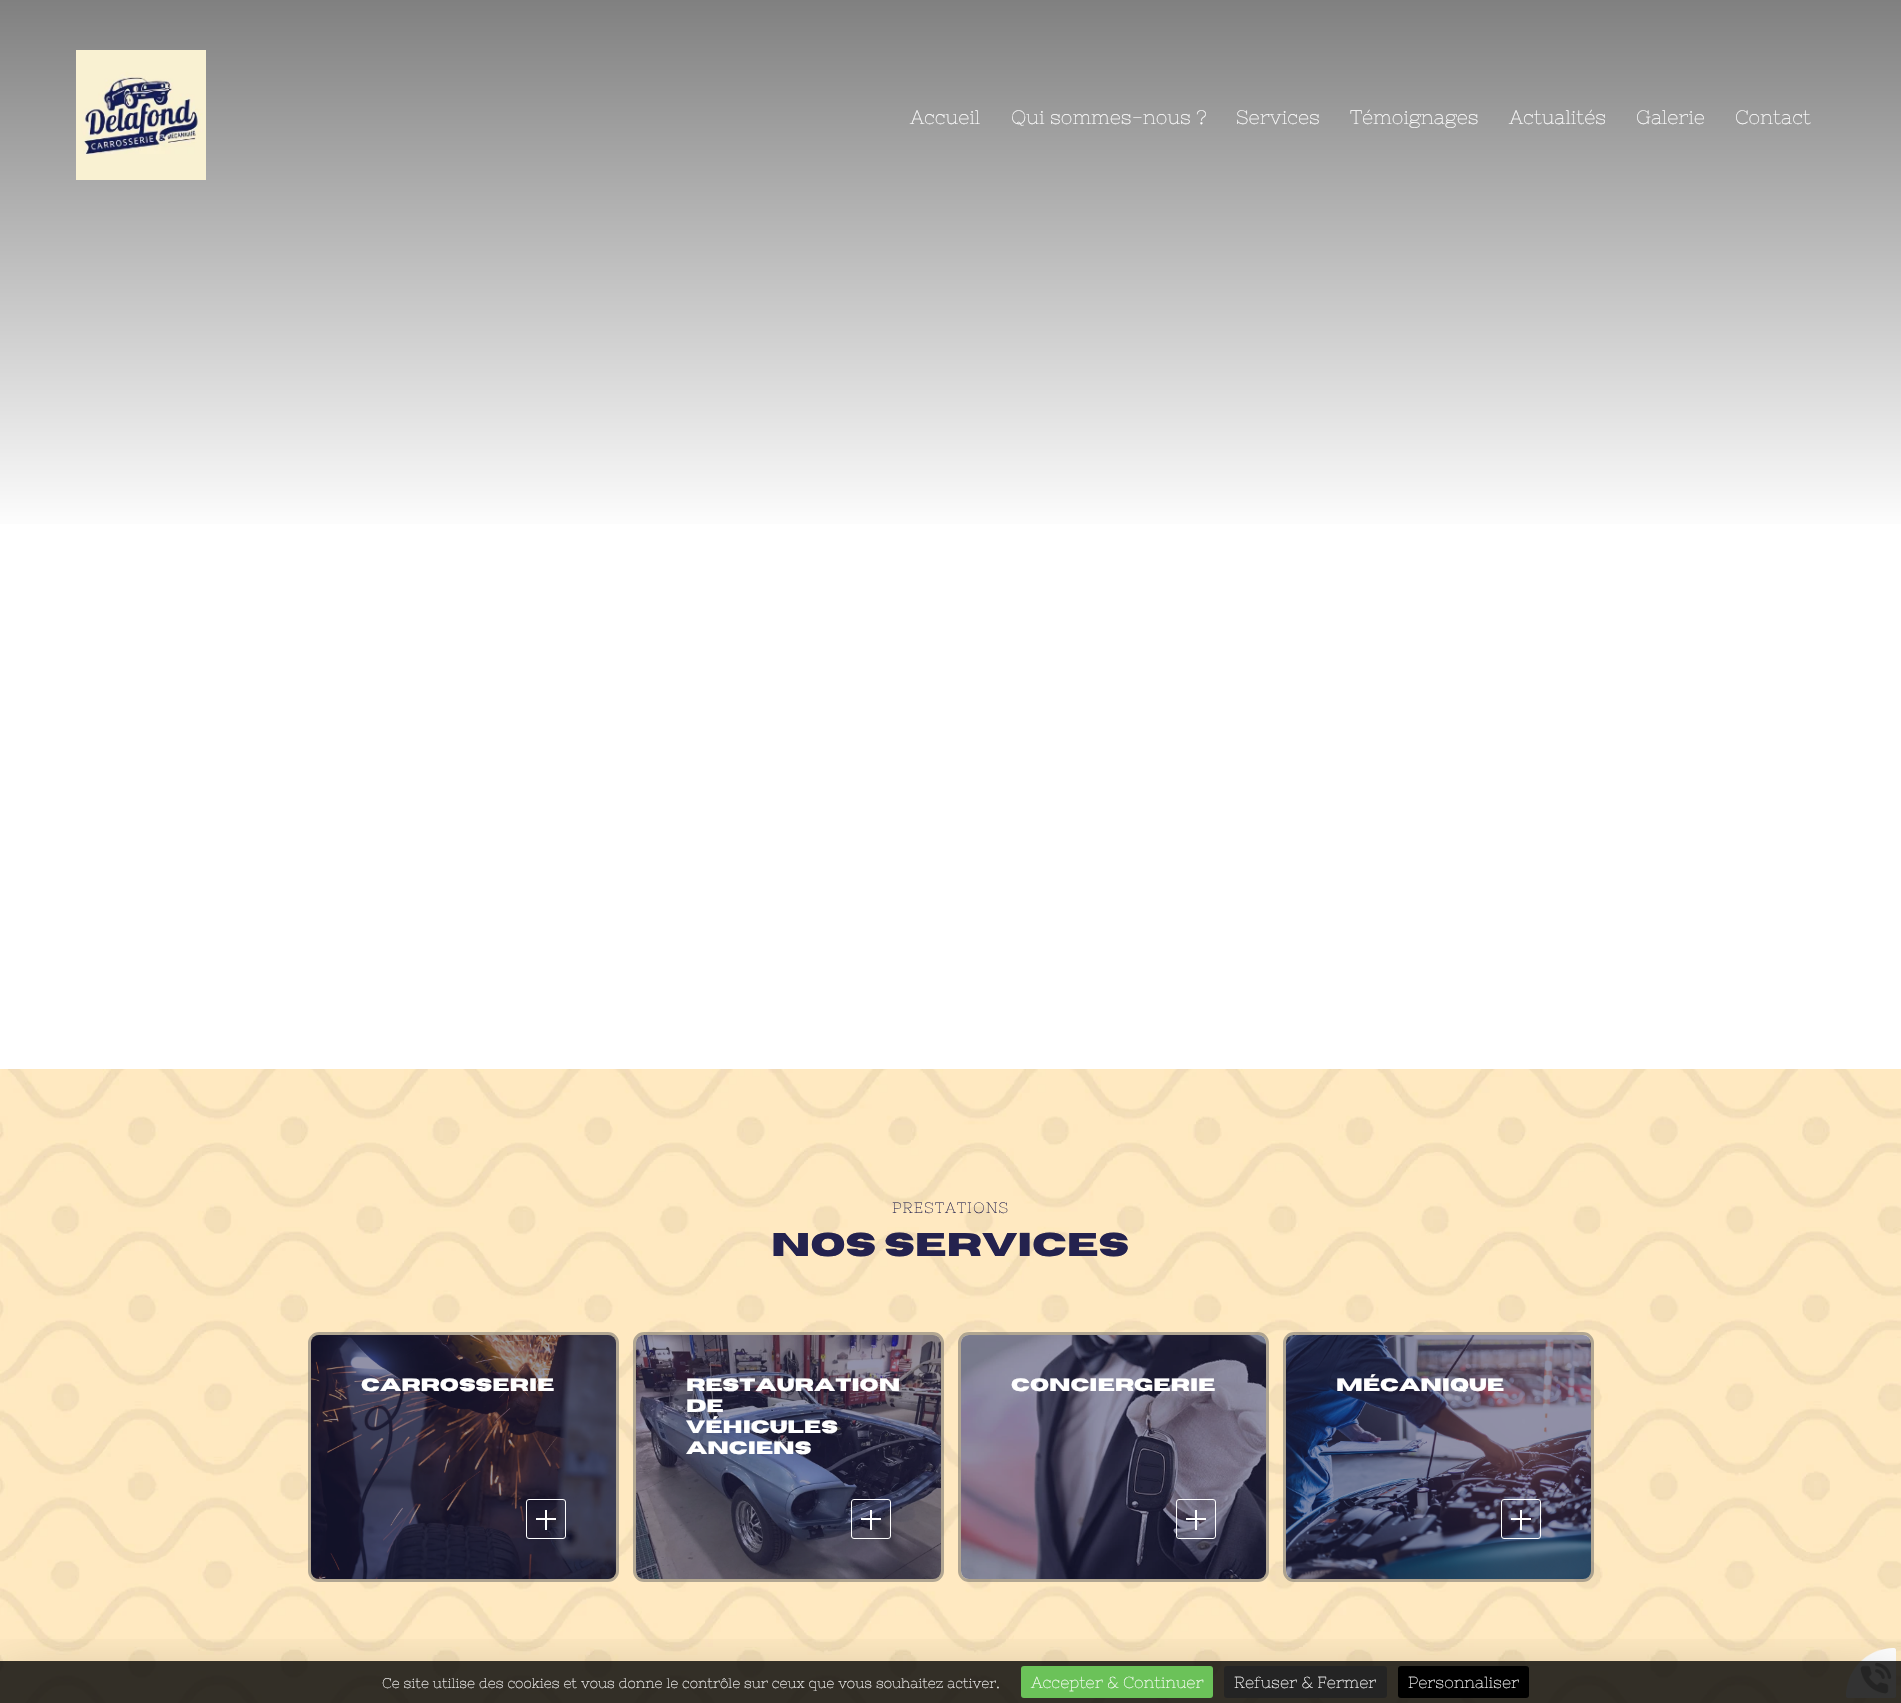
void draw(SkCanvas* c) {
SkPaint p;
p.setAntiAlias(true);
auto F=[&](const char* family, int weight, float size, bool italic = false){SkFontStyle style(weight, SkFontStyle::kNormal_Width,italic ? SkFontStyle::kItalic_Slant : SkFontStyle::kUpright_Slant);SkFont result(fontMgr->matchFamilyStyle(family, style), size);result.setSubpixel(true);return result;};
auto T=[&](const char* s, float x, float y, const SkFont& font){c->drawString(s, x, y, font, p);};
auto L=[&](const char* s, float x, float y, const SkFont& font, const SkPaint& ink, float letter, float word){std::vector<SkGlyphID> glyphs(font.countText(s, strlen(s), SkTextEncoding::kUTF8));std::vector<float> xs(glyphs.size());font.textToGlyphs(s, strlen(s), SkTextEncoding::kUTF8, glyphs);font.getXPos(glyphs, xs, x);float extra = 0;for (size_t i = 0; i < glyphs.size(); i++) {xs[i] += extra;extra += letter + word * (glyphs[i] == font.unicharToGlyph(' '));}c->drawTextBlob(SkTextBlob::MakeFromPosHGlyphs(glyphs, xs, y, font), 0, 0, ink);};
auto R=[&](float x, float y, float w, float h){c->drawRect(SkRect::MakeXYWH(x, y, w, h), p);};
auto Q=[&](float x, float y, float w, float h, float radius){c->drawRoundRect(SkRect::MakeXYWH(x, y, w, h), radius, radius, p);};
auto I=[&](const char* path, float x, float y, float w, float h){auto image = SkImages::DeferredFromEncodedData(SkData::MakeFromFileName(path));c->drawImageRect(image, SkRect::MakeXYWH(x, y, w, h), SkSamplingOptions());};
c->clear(0xffffffff);
{
const SkColor colors[] = {0xff808080,0xffffffff};
const float stops[] = {0,1};
const SkPoint ends[] = {{951,0}, {951,535}};
p.setShader(SkGradientShader::MakeLinear(ends, colors, stops, 2, SkTileMode::kClamp));
p.setAlpha(255);
}
R(0,0,1901,524);
I("1.png",76,50,130,130);
auto f1 = F("Nixie One",400,19.5);
p.setShader(nullptr);
p.setColor(0xffffffff);
T("Accueil",910,124,f1);
T("Qui sommes-nous ?",1011,124,f1);
T("Services",1236,124,f1);
T("Témoignages",1350,124,f1);
T("Actualités",1509,124,f1);
T("Galerie",1636,124,f1);
T("Contact",1735,124,f1);
I("2.png",0,1069,1901,634);
auto f2 = F("Nixie One",400,15);
p.setColor(0xff24224e);
L("PRESTATIONS",892,1213,f2,p,1,0);
auto f3 = F("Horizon",700,33);
T("Nos services",771,1256,f3);
p.setStroke(true);
p.setStrokeWidth(3);
p.setColor(0x80646464);
c->drawRoundRect(SkRect::MakeXYWH(309.5,1333.5,308,247),9.5,9.5,p);
I("3.png",311,1335,305,244);
p.setStroke(false);
p.setColor(0x8024234f);
Q(311,1335,305,244,8);
auto f4 = F("Horizon",700,18);
p.setColor(0xffffffff);
T("Carrosserie",361,1391,f4);
p.setStroke(true);
p.setStrokeWidth(1);
c->drawRoundRect(SkRect::MakeXYWH(526.5,1499.5,39,39),2.5,2.5,p);
p.setStroke(false);
R(536,1518,20,2);
R(545,1510,2,20);
p.setStroke(true);
p.setStrokeWidth(3);
p.setColor(0x80646464);
c->drawRoundRect(SkRect::MakeXYWH(634.5,1333.5,308,247),9.5,9.5,p);
I("4.png",636,1335,305,244);
p.setStroke(false);
p.setColor(0x8024234f);
Q(636,1335,305,244,8);
p.setColor(0xffffffff);
T("Restauration",686,1391,f4);
T("de",686,1412,f4);
T("véhicules",686,1433,f4);
T("anciens",686,1454,f4);
p.setStroke(true);
p.setStrokeWidth(1);
c->drawRoundRect(SkRect::MakeXYWH(851.5,1499.5,39,39),2.5,2.5,p);
p.setStroke(false);
R(861,1518,20,2);
R(870,1510,2,20);
p.setStroke(true);
p.setStrokeWidth(3);
p.setColor(0x80646464);
c->drawRoundRect(SkRect::MakeXYWH(959.5,1333.5,308,247),9.5,9.5,p);
I("5.png",961,1335,305,244);
p.setStroke(false);
p.setColor(0x8024234f);
Q(961,1335,305,244,8);
p.setColor(0xffffffff);
T("Conciergerie",1011,1391,f4);
p.setStroke(true);
p.setStrokeWidth(1);
c->drawRoundRect(SkRect::MakeXYWH(1176.5,1499.5,39,39),2.5,2.5,p);
p.setStroke(false);
R(1186,1518,20,2);
R(1195,1510,2,20);
p.setStroke(true);
p.setStrokeWidth(3);
p.setColor(0x80646464);
c->drawRoundRect(SkRect::MakeXYWH(1284.5,1333.5,308,247),9.5,9.5,p);
I("6.png",1286,1335,305,244);
p.setStroke(false);
p.setColor(0x8024234f);
Q(1286,1335,305,244,8);
p.setColor(0xffffffff);
T("Mécanique",1336,1391,f4);
p.setStroke(true);
p.setStrokeWidth(1);
c->drawRoundRect(SkRect::MakeXYWH(1501.5,1499.5,39,39),2.5,2.5,p);
p.setStroke(false);
R(1511,1518,20,2);
R(1520,1510,2,20);
I("7.png",1846,1648,50,50);
c->save();
c->clipRect(SkRect::MakeXYWH(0,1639,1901,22));
p.setColor(0x40000000);
p.setMaskFilter(SkMaskFilter::MakeBlur(kNormal_SkBlurStyle, 30));
c->drawRect(SkRect::MakeXYWH(0,1681,1901,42),p);
p.setMaskFilter(nullptr);
c->restore();
p.setColor(0xcc000000);
R(0,1661,1901,42);
auto f5 = F("Nixie One",400,14);
p.setColor(0xffffffff);
T("Ce site utilise des cookies et vous donne le contrôle sur ceux que vous souhaitez activer.",382,1688,f5);
p.setColor(0xff6bc259);
Q(1021,1666,192,32,3);
auto f6 = F("Nixie One",400,16);
p.setColor(0xffffffff);
T("Accepter & Continuer",1031,1688,f6);
p.setColor(0xff242424);
Q(1224,1666,163,32,3);
p.setColor(0xffffffff);
T("Refuser & Fermer",1234,1688,f6);
p.setColor(0xff000000);
Q(1398,1666,131,32,3);
p.setColor(0xffffffff);
T("Personnaliser",1408,1688,f6);
}
